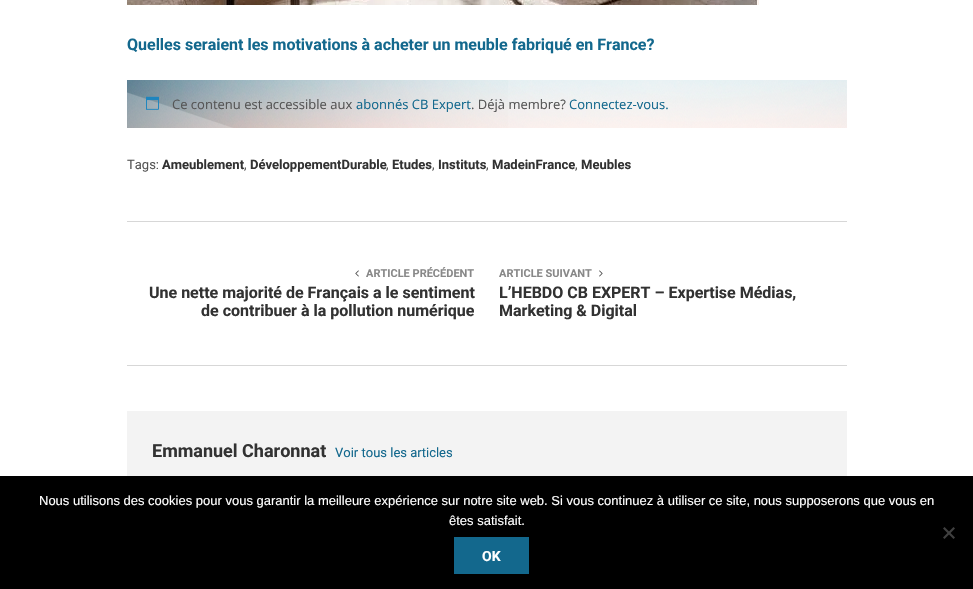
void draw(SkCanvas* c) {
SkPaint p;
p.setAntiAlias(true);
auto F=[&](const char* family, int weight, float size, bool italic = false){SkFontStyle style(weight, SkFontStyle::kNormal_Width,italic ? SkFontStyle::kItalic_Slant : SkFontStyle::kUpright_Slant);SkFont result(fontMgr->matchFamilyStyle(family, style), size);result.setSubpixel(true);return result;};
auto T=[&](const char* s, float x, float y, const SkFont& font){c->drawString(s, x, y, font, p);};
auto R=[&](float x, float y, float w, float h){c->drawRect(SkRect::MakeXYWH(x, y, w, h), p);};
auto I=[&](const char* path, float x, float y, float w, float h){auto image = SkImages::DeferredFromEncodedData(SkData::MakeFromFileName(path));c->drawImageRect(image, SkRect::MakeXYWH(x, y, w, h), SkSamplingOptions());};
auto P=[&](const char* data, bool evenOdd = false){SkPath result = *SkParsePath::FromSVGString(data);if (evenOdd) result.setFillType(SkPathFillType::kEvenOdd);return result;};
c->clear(0xffffffff);
I("1.png",127,0,632,5);
auto f1 = F("Roboto",700,16);
p.setColor(0xff13688d);
T("Quelles seraient les motivations à acheter un meuble fabriqué en France?",127,50,f1);
I("2.png",127,80,720,48);
I("3.png",146,96,13,14);
auto f2 = F("Open Sans",400,13);
p.setColor(0xff555555);
T("Ce contenu est accessible aux",172,109,f2);
p.setColor(0xff13688d);
T("abonnés CB Expert",356,109,f2);
p.setColor(0xff555555);
T(". Déjà membre?",471,109,f2);
p.setColor(0xff13688d);
T("Connectez-vous.",569,109,f2);
auto f3 = F("Roboto",400,13);
p.setColor(0xff555555);
T("Tags:",127,169,f3);
auto f4 = F("Roboto",700,13);
p.setColor(0xff323232);
T("Ameublement",162,169,f4);
p.setColor(0xff555555);
T(",",244,169,f3);
p.setColor(0xff323232);
T("DéveloppementDurable",250,169,f4);
p.setColor(0xff555555);
T(",",386,169,f3);
p.setColor(0xff323232);
T("Etudes",392,169,f4);
p.setColor(0xff555555);
T(",",432,169,f3);
p.setColor(0xff323232);
T("Instituts",438,169,f4);
p.setColor(0xff555555);
T(",",486,169,f3);
p.setColor(0xff323232);
T("MadeinFrance",492,169,f4);
p.setColor(0xff555555);
T(",",575,169,f3);
p.setColor(0xff323232);
T("Meubles",581,169,f4);
p.setColor(0xffd7d7d7);
R(127,221,720,1);
R(127,365,720,1);
I("4.png",355,270,4,7);
auto f5 = F("Roboto",700,11);
p.setColor(0xff888888);
T("ARTICLE PRÉCÉDENT",366,277,f5);
p.setColor(0xff323232);
T("Une nette majorité de Français a le sentiment",149,298,f1);
T("de contribuer à la pollution numérique",201,316,f1);
p.setColor(0xff888888);
T("ARTICLE SUIVANT",499,277,f5);
I("5.png",599,270,4,7);
p.setColor(0xff323232);
T("L’HEBDO CB EXPERT – Expertise Médias,",499,298,f1);
T("Marketing & Digital",499,316,f1);
p.setColor(0xfff3f3f3);
R(127,411,720,65);
auto f6 = F("Roboto",700,18);
p.setColor(0xff323232);
T("Emmanuel Charonnat",152,457,f6);
p.setColor(0xff13688d);
T("Voir tous les articles",335,457,f3);
p.setColor(0xff000000);
R(0,476,973,113);
auto f7 = F("Liberation Sans",400,13);
p.setColor(0xffffffff);
T("Nous utilisons des cookies pour vous garantir la meilleure expérience sur notre site web. Si vous continuez à utiliser ce site, nous supposerons que vous en",39,505,f7);
T("êtes satisfait.",449,525,f7);
p.setColor(0xff404040);
c->drawPath(P("M953.5 527l1.5 1.5l-10.5 10.5l-1.5-1.5z"),p);
c->drawPath(P("M943 528.5l1.5-1.5l10.5 10.5l-1.5 1.5z"),p);
p.setColor(0xff13688d);
R(454,537,75,37);
auto f8 = F("Roboto",700,14);
p.setColor(0xffffffff);
T("OK",482,561,f8);
}
